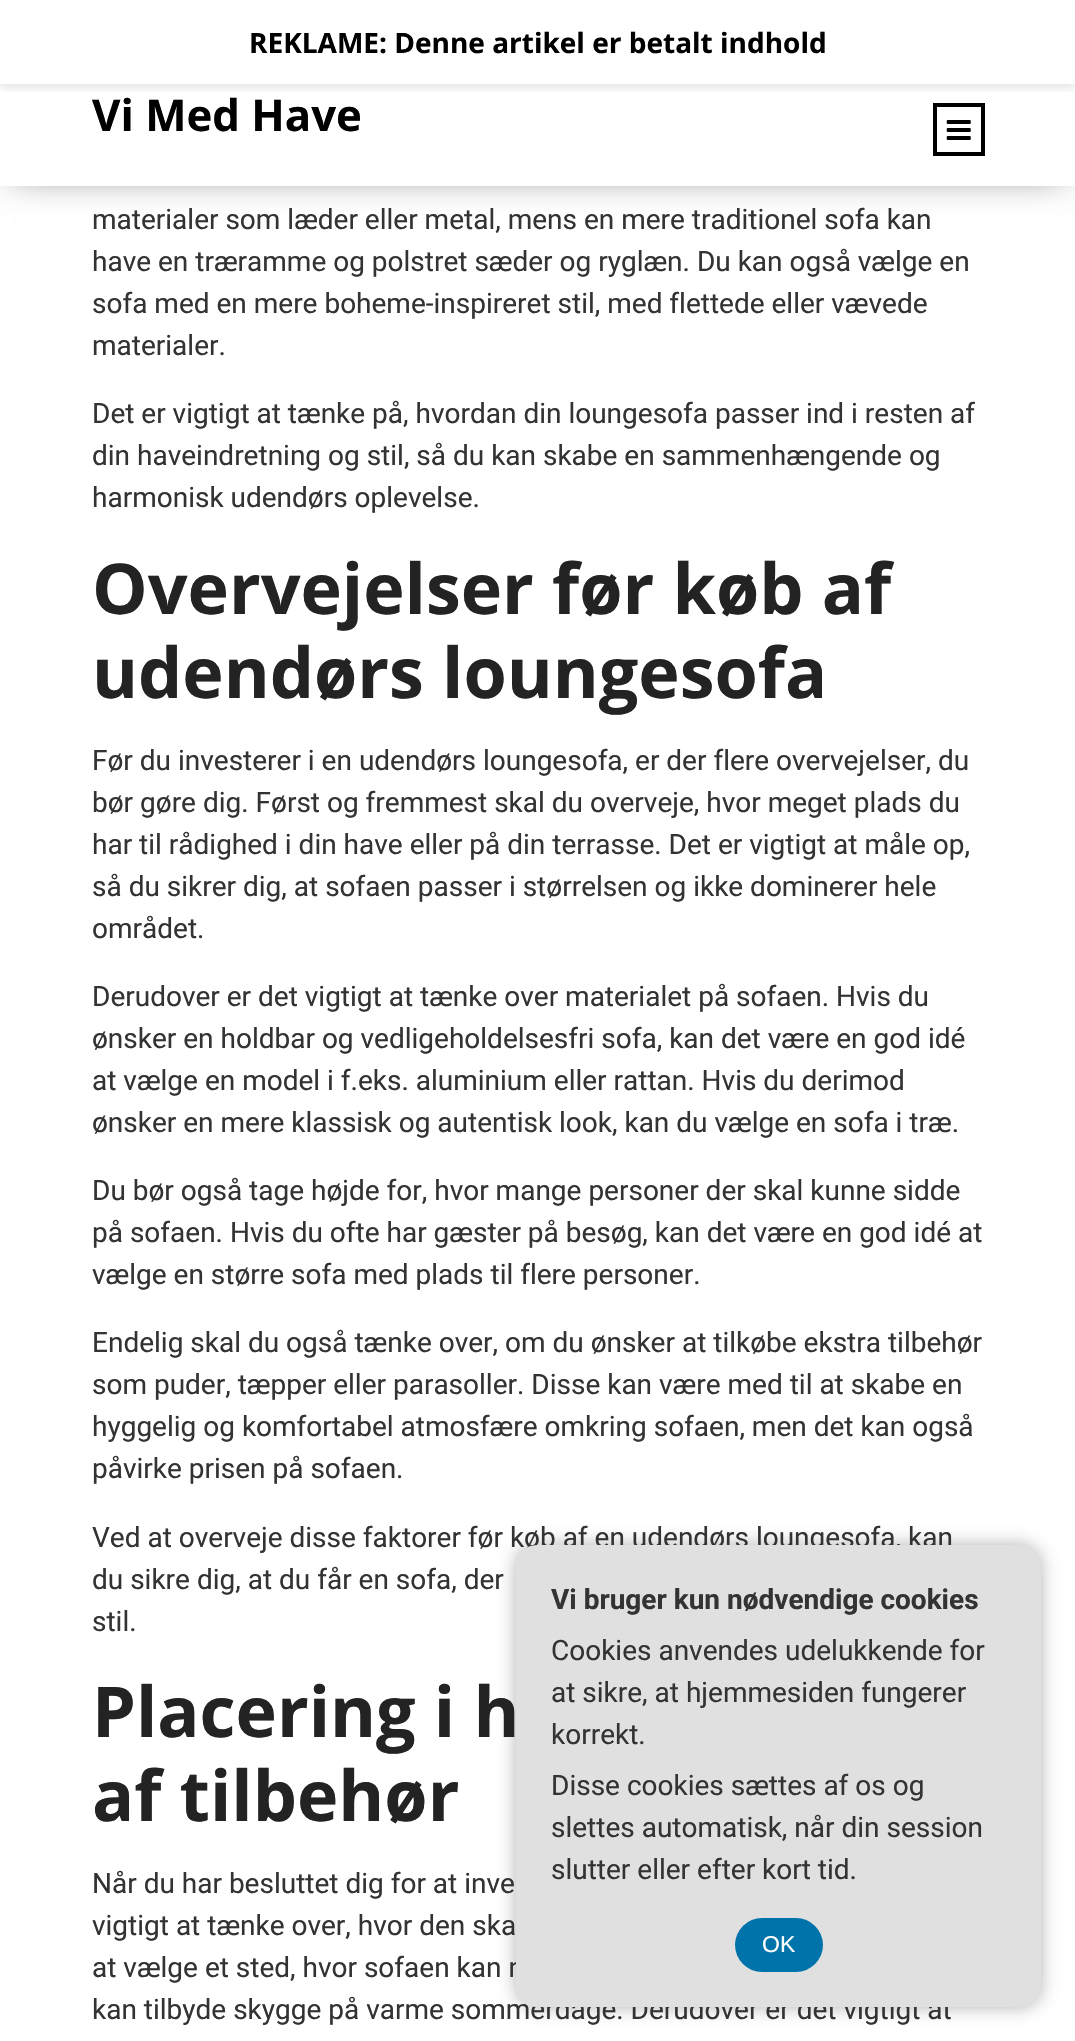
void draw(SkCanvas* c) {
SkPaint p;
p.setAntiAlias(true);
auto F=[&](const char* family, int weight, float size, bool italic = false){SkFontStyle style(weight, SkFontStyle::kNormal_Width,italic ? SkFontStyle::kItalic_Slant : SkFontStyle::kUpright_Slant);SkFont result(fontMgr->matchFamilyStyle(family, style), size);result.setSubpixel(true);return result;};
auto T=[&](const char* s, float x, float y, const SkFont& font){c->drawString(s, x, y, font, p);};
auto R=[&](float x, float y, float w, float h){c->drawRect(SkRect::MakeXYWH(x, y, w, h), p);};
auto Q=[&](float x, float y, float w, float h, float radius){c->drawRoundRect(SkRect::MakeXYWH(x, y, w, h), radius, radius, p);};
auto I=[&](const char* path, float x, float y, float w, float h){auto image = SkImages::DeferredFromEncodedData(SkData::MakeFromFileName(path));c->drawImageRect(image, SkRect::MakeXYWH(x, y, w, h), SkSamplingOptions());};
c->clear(0xffffffff);
p.setColor(0x99000000);
p.setMaskFilter(SkMaskFilter::MakeBlur(kNormal_SkBlurStyle, 17.5));
c->drawRect(SkRect::MakeXYWH(12,12,1052,161),p);
p.setMaskFilter(nullptr);
p.setColor(0xffffffff);
R(0,0,1075,186);
auto f1 = F("Open Sans",700,43.75);
p.setColor(0xff000000);
T("Vi Med Have",92,131,f1);
p.setStroke(true);
p.setStrokeWidth(4);
c->drawRect(SkRect::MakeXYWH(935,105,48,49),p);
I("1.png",946,120,25,20);
c->save();
c->clipRect(SkRect::MakeXYWH(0,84,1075,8));
p.setStroke(false);
p.setColor(0x1a000000);
p.setMaskFilter(SkMaskFilter::MakeBlur(kNormal_SkBlurStyle, 4.5));
c->drawRect(SkRect::MakeXYWH(0,4,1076,84),p);
p.setMaskFilter(nullptr);
c->restore();
auto f2 = F("Open Sans",700,28);
p.setColor(0xff000000);
T("REKLAME: Denne artikel er betalt indhold",249,53,f2);
p.setColor(0x4d000000);
p.setMaskFilter(SkMaskFilter::MakeBlur(kNormal_SkBlurStyle, 9));
c->drawRoundRect(SkRect::MakeXYWH(516,1545,525,462),21,21,p);
p.setMaskFilter(nullptr);
auto f3 = F("Roboto",400,28);
p.setColor(0xff333333);
T("Ved at overveje disse faktorer før køb af en udendørs loungesofa, kan",92,1547,f3);
T("at vælge et sted, hvor sofaen kan n",92,1977,f3);
T("kan tilbyde skygge på varme sommerdage. Derudover er det vigtigt at",92,2019,f3);
p.setColor(0xffe0e0e0);
Q(516,1545,525,462,21);
auto f4 = F("Roboto",700,28);
p.setColor(0xff333333);
T("Vi bruger kun nødvendige cookies",551,1609,f4);
T("Cookies anvendes udelukkende for",551,1660,f3);
T("at sikre, at hjemmesiden fungerer",551,1702,f3);
T("korrekt.",551,1744,f3);
T("Disse cookies sættes af os og",551,1795,f3);
T("slettes automatisk, når din session",551,1837,f3);
T("slutter eller efter kort tid.",551,1879,f3);
p.setColor(0xff0073aa);
Q(735,1918,88,54,27);
auto f5 = F("Liberation Sans",400,23);
p.setColor(0xffffffff);
T("OK",762,1952,f5);
p.setColor(0xff333333);
T("materialer som læder eller metal, mens en mere traditionel sofa kan",92,229,f3);
T("have en træramme og polstret sæder og ryglæn. Du kan også vælge en",92,271,f3);
T("sofa med en mere boheme-inspireret stil, med flettede eller vævede",92,313,f3);
T("materialer.",92,355,f3);
T("Det er vigtigt at tænke på, hvordan din loungesofa passer ind i resten af",92,423,f3);
T("din haveindretning og stil, så du kan skabe en sammenhængende og",92,465,f3);
T("harmonisk udendørs oplevelse.",92,507,f3);
auto f6 = F("Open Sans",700,70);
p.setColor(0xff232323);
T("Overvejelser før køb af",92,614,f6);
T("udendørs loungesofa",92,698,f6);
p.setColor(0xff333333);
T("Før du investerer i en udendørs loungesofa, er der flere overvejelser, du",92,770,f3);
T("bør gøre dig. Først og fremmest skal du overveje, hvor meget plads du",92,812,f3);
T("har til rådighed i din have eller på din terrasse. Det er vigtigt at måle op,",92,854,f3);
T("så du sikrer dig, at sofaen passer i størrelsen og ikke dominerer hele",92,896,f3);
T("området.",92,938,f3);
T("Derudover er det vigtigt at tænke over materialet på sofaen. Hvis du",92,1006,f3);
T("ønsker en holdbar og vedligeholdelsesfri sofa, kan det være en god idé",92,1048,f3);
T("at vælge en model i f.eks. aluminium eller rattan. Hvis du derimod",92,1090,f3);
T("ønsker en mere klassisk og autentisk look, kan du vælge en sofa i træ.",92,1132,f3);
T("Du bør også tage højde for, hvor mange personer der skal kunne sidde",92,1200,f3);
T("på sofaen. Hvis du ofte har gæster på besøg, kan det være en god idé at",92,1242,f3);
T("vælge en større sofa med plads til flere personer.",92,1284,f3);
T("Endelig skal du også tænke over, om du ønsker at tilkøbe ekstra tilbehør",92,1352,f3);
T("som puder, tæpper eller parasoller. Disse kan være med til at skabe en",92,1394,f3);
T("hyggelig og komfortabel atmosfære omkring sofaen, men det kan også",92,1436,f3);
T("påvirke prisen på sofaen.",92,1478,f3);
T("du sikre dig, at du får en sofa, der",92,1589,f3);
T("stil.",92,1631,f3);
p.setColor(0xff232323);
T("Placering i h",92,1737,f6);
T("af tilbehør",92,1821,f6);
p.setColor(0xff333333);
T("Når du har besluttet dig for at inve",92,1893,f3);
T("vigtigt at tænke over, hvor den ska",92,1935,f3);
}
